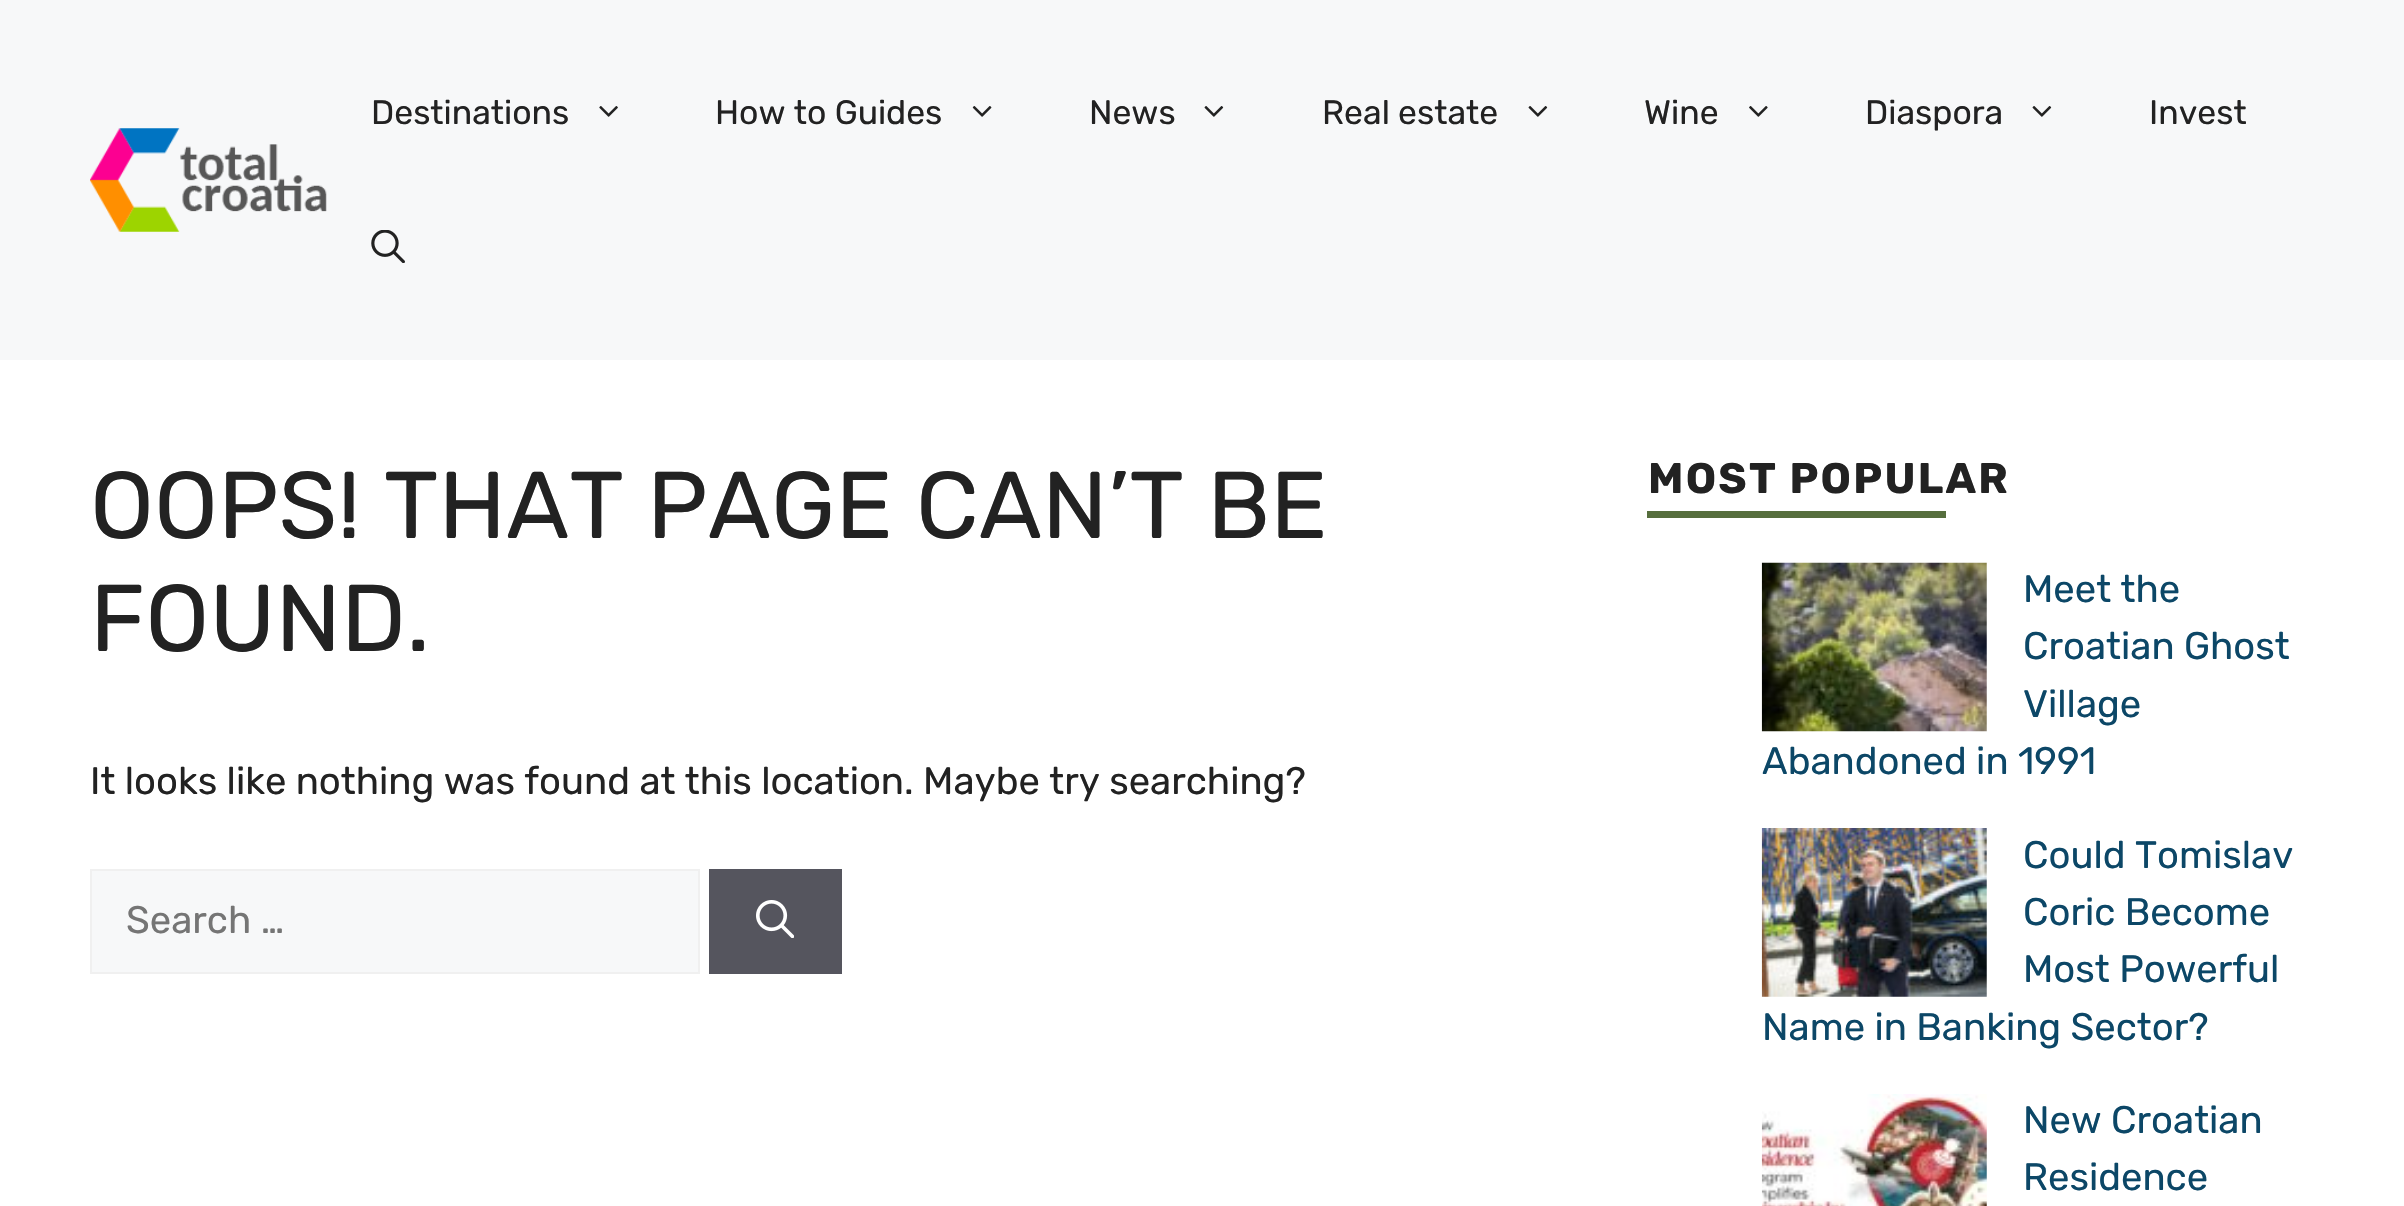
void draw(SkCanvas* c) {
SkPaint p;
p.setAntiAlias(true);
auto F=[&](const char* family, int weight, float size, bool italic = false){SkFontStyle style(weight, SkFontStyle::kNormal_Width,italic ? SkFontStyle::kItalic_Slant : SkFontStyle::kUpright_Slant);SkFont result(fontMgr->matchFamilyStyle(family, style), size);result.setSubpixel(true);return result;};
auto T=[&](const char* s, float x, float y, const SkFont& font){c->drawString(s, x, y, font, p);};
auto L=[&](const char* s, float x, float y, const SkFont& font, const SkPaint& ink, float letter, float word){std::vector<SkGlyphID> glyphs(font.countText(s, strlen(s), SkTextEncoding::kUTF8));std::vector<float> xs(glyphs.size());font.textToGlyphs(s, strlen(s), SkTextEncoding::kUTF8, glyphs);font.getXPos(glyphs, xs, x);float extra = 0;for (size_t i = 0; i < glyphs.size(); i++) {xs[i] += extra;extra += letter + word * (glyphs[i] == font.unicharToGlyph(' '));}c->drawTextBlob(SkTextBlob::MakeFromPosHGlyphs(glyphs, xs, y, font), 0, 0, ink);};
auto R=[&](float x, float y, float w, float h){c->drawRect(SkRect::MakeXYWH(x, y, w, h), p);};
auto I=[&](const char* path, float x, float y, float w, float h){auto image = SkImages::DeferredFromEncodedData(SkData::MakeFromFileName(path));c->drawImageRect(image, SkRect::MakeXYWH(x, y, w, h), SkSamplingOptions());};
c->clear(0xffffffff);
p.setColor(0xfff7f8f9);
R(0,0,2404,360);
auto f1 = F("Rubik",400,33.75);
p.setColor(0xff222222);
T("Destinations",371,124,f1);
I("1.png",599,106,19,11);
T("How to Guides",715,124,f1);
I("2.png",972,106,20,11);
T("News",1089,124,f1);
I("3.png",1204,106,20,11);
T("Real estate",1322,124,f1);
I("3.png",1528,106,20,11);
T("Wine",1644,124,f1);
I("4.png",1749,106,19,11);
T("Diaspora",1865,124,f1);
I("3.png",2032,106,20,11);
T("Invest",2149,124,f1);
I("5.png",371,230,34,33);
I("6.png",90,128,237,104);
auto f2 = F("Rubik",400,94.5);
T("OOPS! THAT PAGE CAN’T BE",90,538,f2);
T("FOUND.",90,651,f2);
auto f3 = F("Rubik",400,38.25);
T("It looks like nothing was found at this location. Maybe try searching?",90,794,f3);
p.setColor(0xfff7f8f9);
c->drawRect(SkRect::MakeXYWH(91,870,608,103),p);
p.setStroke(true);
p.setStrokeWidth(2);
p.setColor(0xfff0f0f0);
c->drawRect(SkRect::MakeXYWH(91,870,608,103),p);
p.setStroke(false);
p.setColor(0xff757575);
T("Search …",126,933,f3);
p.setColor(0xff55555e);
R(709,869,133,105);
I("7.png",756,900,38,38);
auto f4 = F("Rubik",700,42.75);
p.setColor(0xff222222);
L("MOST POPULAR",1648,493,f4,p,2.25,0);
p.setColor(0xff566e3d);
R(1647,511,299,7);
I("8.png",1761,562,226,170);
p.setColor(0xff0c4767);
T("Meet the",2023,602,f3);
T("Croatian Ghost",2023,659,f3);
T("Village",2023,717,f3);
T("Abandoned in 1991",1762,774,f3);
I("9.png",1761,828,226,169);
T("Could Tomislav",2023,868,f3);
T("Coric Become",2023,925,f3);
T("Most Powerful",2023,982,f3);
T("Name in Banking Sector?",1762,1040,f3);
I("10.png",1761,1094,226,112);
T("New Croatian",2023,1133,f3);
T("Residence",2023,1190,f3);
}
